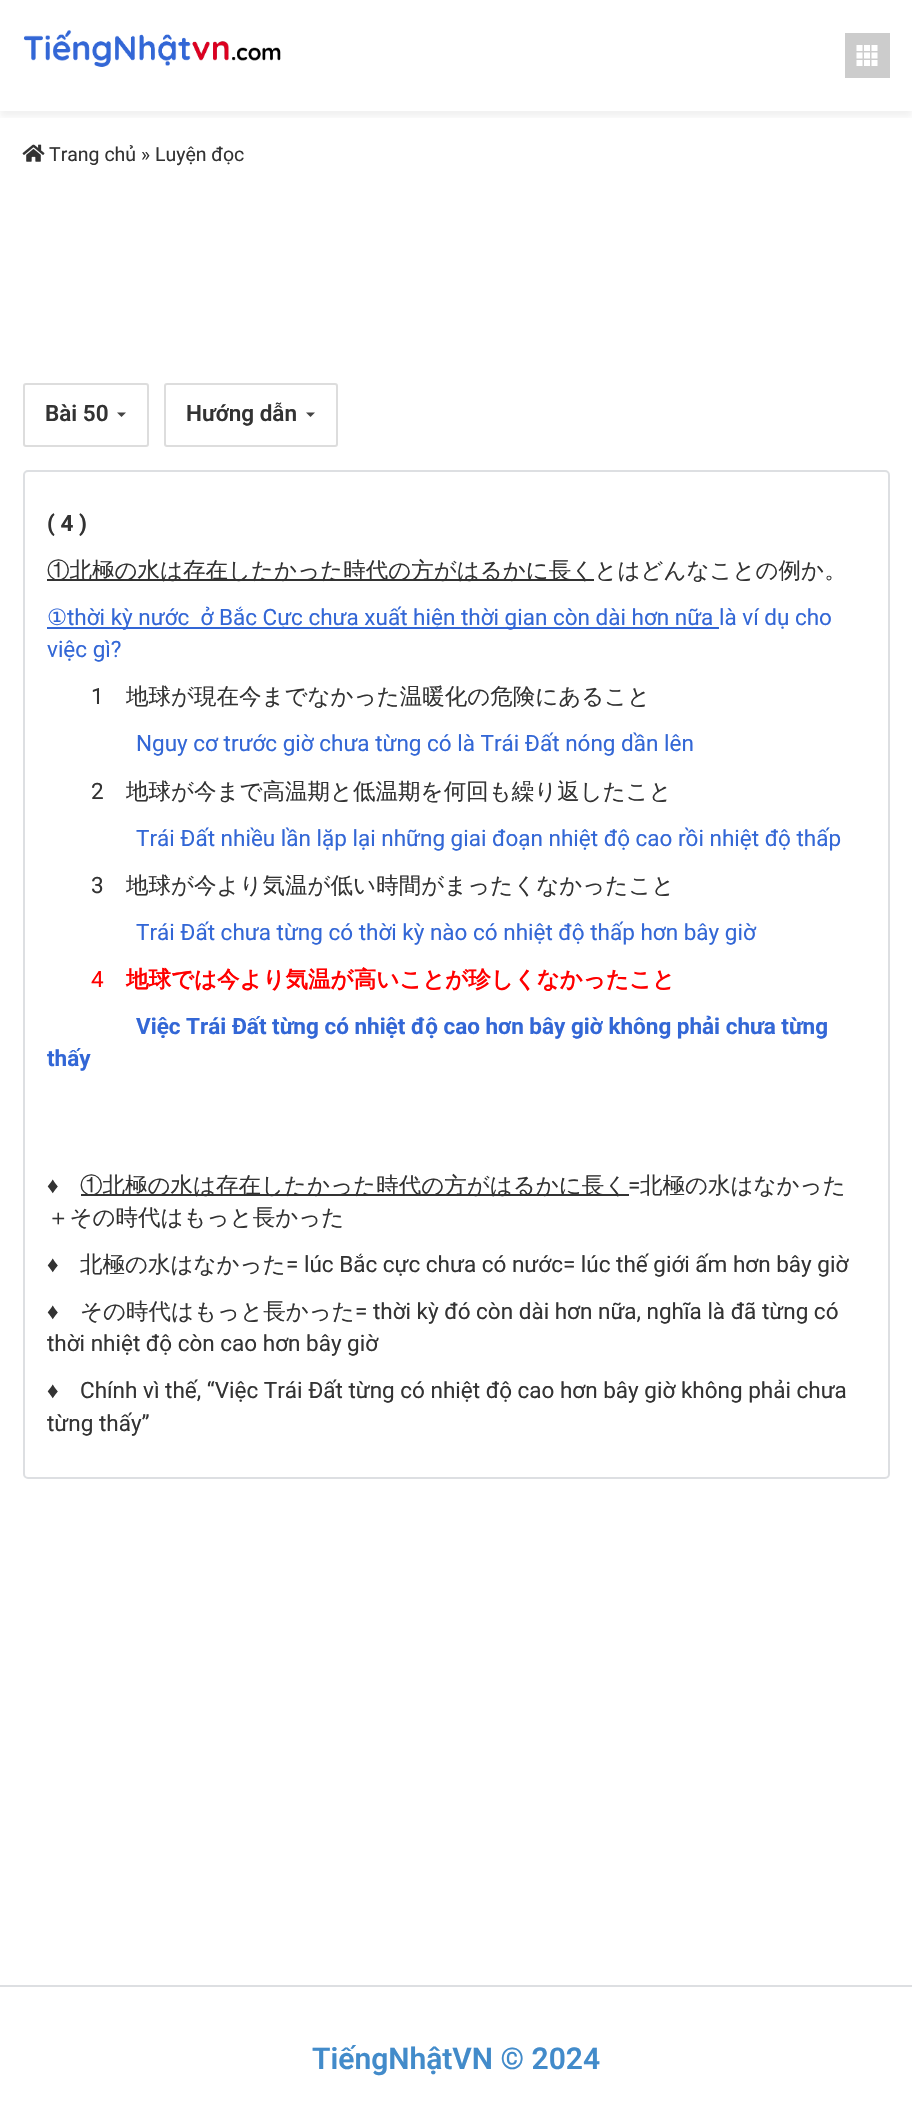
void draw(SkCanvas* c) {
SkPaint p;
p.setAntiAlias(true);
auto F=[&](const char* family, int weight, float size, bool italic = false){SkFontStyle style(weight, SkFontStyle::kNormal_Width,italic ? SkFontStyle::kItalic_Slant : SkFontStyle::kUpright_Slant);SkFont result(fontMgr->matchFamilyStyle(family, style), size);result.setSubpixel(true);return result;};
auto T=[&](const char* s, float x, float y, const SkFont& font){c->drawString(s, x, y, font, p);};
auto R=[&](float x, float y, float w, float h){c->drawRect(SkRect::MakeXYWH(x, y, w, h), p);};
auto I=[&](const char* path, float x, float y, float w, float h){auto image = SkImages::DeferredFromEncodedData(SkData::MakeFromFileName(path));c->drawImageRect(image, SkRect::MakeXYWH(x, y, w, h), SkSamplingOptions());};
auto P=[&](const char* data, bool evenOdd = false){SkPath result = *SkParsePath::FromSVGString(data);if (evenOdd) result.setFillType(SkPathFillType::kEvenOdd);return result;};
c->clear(0xffffffff);
c->save();
c->clipRect(SkRect::MakeXYWH(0,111,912,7));
p.setColor(0x0d000000);
p.setMaskFilter(SkMaskFilter::MakeBlur(kNormal_SkBlurStyle, 3));
c->drawRect(SkRect::MakeXYWH(0,6,912,111),p);
p.setMaskFilter(nullptr);
c->restore();
I("1.png",23,30,258,37);
p.setColor(0xffcccccc);
R(845,33,45,45);
I("2.png",856,45,22,21);
I("3.png",22,144,23,18);
auto f1 = F("Roboto",400,19.5);
p.setColor(0xff333333);
T("Trang chủ » Luyện đọc",49,161,f1);
p.setStroke(true);
p.setStrokeWidth(2);
p.setColor(0xffdddddd);
c->drawRoundRect(SkRect::MakeXYWH(24,384,124,62),2,2,p);
auto f2 = F("Roboto",600,22.5);
p.setStroke(false);
p.setColor(0xff333333);
T("Bài 50",45,421,f2);
p.setColor(0xff444444);
c->drawPath(P("M117 412.5h9l-4.5 4.5z"),p);
p.setStroke(true);
p.setColor(0xffdddddd);
c->drawRoundRect(SkRect::MakeXYWH(165,384,172,62),2,2,p);
p.setStroke(false);
p.setColor(0xff333333);
T("Hướng dẫn",186,421,f2);
p.setColor(0xff444444);
c->drawPath(P("M306 412.5h9l-4.5 4.5z"),p);
p.setStroke(true);
p.setColor(0xffdddfe2);
c->drawRoundRect(SkRect::MakeXYWH(24,471,865,1007),4,4,p);
auto f3 = F("Roboto",700,22.5);
p.setStroke(false);
p.setColor(0xff333333);
T("( 4 )",47,531,f3);
R(47,579,547,2);
auto f4 = F("WenQuanYi Zen Hei",500,22.5);
T("①北極の水は存在したかった時代の方がはるかに長くとはどんなことの例か。",47,578,f4);
auto f5 = F("DejaVu Sans",400,22.5);
p.setColor(0xff3367d6);
T("①",47,625,f5);
R(47,627,672,2);
auto f6 = F("Roboto",400,22.5);
T("thời kỳ nước  ở Bắc Cực chưa xuất hiện thời gian còn dài hơn nữa là ví dụ cho",67,625,f6);
T("việc gì?",47,657,f6);
p.setColor(0xff333333);
T("1",91,704,f6);
T("地球が現在今までなかった温暖化の危険にあること",126,704,f4);
p.setColor(0xff3367d6);
T("Nguy cơ trước giờ chưa từng có là Trái Đất nóng dần lên",136,751,f6);
p.setColor(0xff333333);
T("2",91,799,f6);
T("地球が今まで高温期と低温期を何回も繰り返したこと",126,799,f4);
p.setColor(0xff3367d6);
T("Trái Đất nhiều lần lặp lại những giai đoạn nhiệt độ cao rồi nhiệt độ thấp",136,846,f6);
p.setColor(0xff333333);
T("3",91,893,f6);
T("地球が今より気温が低い時間がまったくなかったこと",126,893,f4);
p.setColor(0xff3367d6);
T("Trái Đất chưa từng có thời kỳ nào có nhiệt độ thấp hơn bây giờ",136,940,f6);
p.setColor(0xffff0000);
T("4",91,987,f6);
auto f7 = F("WenQuanYi Zen Hei",700,22.5);
T("地球では今より気温が高いことが珍しくなかったこと",126,987,f7);
p.setColor(0xff3367d6);
T("Việc Trái Đất từng có nhiệt độ cao hơn bây giờ không phải chưa từng",136,1034,f3);
T("thấy",47,1066,f3);
auto f8 = F("Liberation Sans",400,22.5);
p.setColor(0xff333333);
T("♦",47,1193,f8);
R(81,1194,548,2);
T("①北極の水は存在したかった時代の方がはるかに長く",80,1193,f4);
T("=",628,1193,f6);
T("北極の水はなかった",640,1193,f4);
T("＋その時代はもっと長かった",47,1225,f4);
T("♦",47,1272,f8);
T("北極の水はなかった",80,1272,f4);
T("= lúc Bắc cực chưa có nước= lúc thế giới ấm hơn bây giờ",286,1272,f6);
T("♦",47,1319,f8);
T("その時代はもっと長かった",80,1319,f4);
T("= thời kỳ đó còn dài hơn nữa, nghĩa là đã từng có",355,1319,f6);
T("thời nhiệt độ còn cao hơn bây giờ",47,1351,f6);
T("♦",47,1398,f8);
T("Chính vì thế, “Việc Trái Đất từng có nhiệt độ cao hơn bây giờ không phải chưa",80,1398,f6);
T("từng thấy”",47,1431,f6);
p.setColor(0xffdddfe2);
R(0,1985,912,2);
auto f9 = F("Roboto",600,30);
p.setColor(0xff428bca);
T("TiếngNhậtVN © 2024",312,2069,f9);
}
